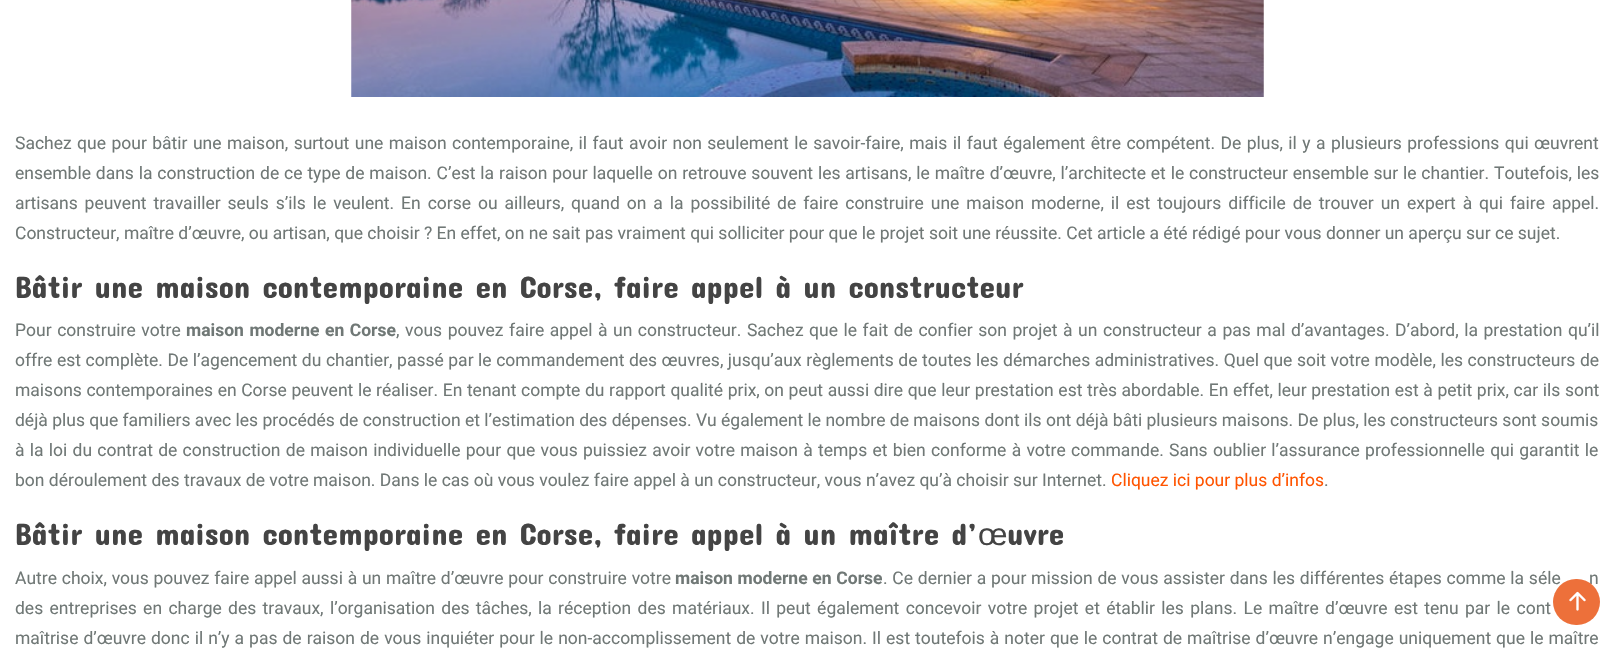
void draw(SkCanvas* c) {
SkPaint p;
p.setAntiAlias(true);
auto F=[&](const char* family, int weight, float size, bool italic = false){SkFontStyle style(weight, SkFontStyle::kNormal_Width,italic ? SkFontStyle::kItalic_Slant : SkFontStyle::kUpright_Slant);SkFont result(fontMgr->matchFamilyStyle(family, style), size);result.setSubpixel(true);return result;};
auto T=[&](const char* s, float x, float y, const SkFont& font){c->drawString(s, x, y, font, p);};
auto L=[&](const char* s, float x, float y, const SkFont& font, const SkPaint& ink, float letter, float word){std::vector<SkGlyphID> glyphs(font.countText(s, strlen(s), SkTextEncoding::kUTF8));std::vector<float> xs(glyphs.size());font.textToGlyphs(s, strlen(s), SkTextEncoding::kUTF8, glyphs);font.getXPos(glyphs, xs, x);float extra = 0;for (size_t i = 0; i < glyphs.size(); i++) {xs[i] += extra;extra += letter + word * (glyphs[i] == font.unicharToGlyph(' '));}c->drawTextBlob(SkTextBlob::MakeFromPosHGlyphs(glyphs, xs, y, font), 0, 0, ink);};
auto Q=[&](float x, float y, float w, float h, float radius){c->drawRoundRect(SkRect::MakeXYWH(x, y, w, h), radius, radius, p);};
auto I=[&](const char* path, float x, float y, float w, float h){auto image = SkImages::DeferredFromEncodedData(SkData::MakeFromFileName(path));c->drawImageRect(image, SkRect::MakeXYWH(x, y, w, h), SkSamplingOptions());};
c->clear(0xffffffff);
I("1.png",351,0,913,97);
auto f1 = F("Roboto",400,17.5);
p.setColor(0xff707876);
L("Sachez que pour bâtir une maison, surtout une maison contemporaine, il faut avoir non seulement le savoir-faire, mais il faut également être compétent. De plus, il y a plusieurs professions qui œuvrent",15,149,f1,p,0,1.1);
L("ensemble dans la construction de ce type de maison. C’est la raison pour laquelle on retrouve souvent les artisans, le maître d’œuvre, l’architecte et le constructeur ensemble sur le chantier. Toutefois, les",15,179,f1,p,0,.5);
L("artisans peuvent travailler seuls s’ils le veulent. En corse ou ailleurs, quand on a la possibilité de faire construire une maison moderne, il est toujours difficile de trouver un expert à qui faire appel.",15,209,f1,p,0,2.6);
T("Constructeur, maître d’œuvre, ou artisan, que choisir ? En effet, on ne sait pas vraiment qui solliciter pour que le projet soit une réussite. Cet article a été rédigé pour vous donner un aperçu sur ce sujet.",15,239,f1);
auto f2 = F("Concert One",400,31.25);
p.setColor(0xff444444);
T("Bâtir une maison contemporaine en Corse, faire appel à un constructeur",15,298,f2);
p.setColor(0xff707876);
L("Pour construire votre",15,336,f1,p,0,1.2);
auto f3 = F("Roboto",700,17.5);
L("maison moderne en Corse",186,336,f3,p,0,1.2);
L(", vous pouvez faire appel à un constructeur. Sachez que le fait de confier son projet à un constructeur a pas mal d’avantages. D’abord, la prestation qu’il",396,336,f1,p,0,1.2);
L("offre est complète. De l’agencement du chantier, passé par le commandement des œuvres, jusqu’aux règlements de toutes les démarches administratives. Quel que soit votre modèle, les constructeurs de",15,366,f1,p,0,.2);
L("maisons contemporaines en Corse peuvent le réaliser. En tenant compte du rapport qualité prix, on peut aussi dire que leur prestation est très abordable. En effet, leur prestation est à petit prix, car ils sont",15,396,f1,p,0,.25);
T("déjà plus que familiers avec les procédés de construction et l’estimation des dépenses. Vu également le nombre de maisons dont ils ont déjà bâti plusieurs maisons. De plus, les constructeurs sont soumis",15,426,f1);
L("à la loi du contrat de construction de maison individuelle pour que vous puissiez avoir votre maison à temps et bien conforme à votre commande. Sans oublier l’assurance professionnelle qui garantit le",15,456,f1,p,0,.9);
T("bon déroulement des travaux de votre maison. Dans le cas où vous voulez faire appel à un constructeur, vous n’avez qu’à choisir sur Internet.",15,486,f1);
p.setColor(0xffff5400);
T("Cliquez ici pour plus d’infos",1111,486,f1);
p.setColor(0xff707876);
T(".",1324,486,f1);
p.setColor(0xff444444);
T("Bâtir une maison contemporaine en Corse, faire appel à un maître d’",15,545,f2);
auto f4 = F("Liberation Sans",400,31.25);
T("œ",978,545,f4);
T("uvre",1007,545,f2);
p.setColor(0xff707876);
L("Autre choix, vous pouvez faire appel aussi à un maître d’œuvre pour construire votre",15,584,f1,p,0,.4);
L("maison moderne en Corse",675,584,f3,p,0,.4);
L(". Ce dernier a pour mission de vous assister dans les différentes étapes comme la séle",883,584,f1,p,0,.4);
L("n",1589,584,f1,p,0,.4);
L("des entreprises en charge des travaux, l’organisation des tâches, la réception des matériaux. Il peut également concevoir votre projet et établir les plans. Le maître d’œuvre est tenu par le cont",15,614,f1,p,0,2);
L("maîtrise d’œuvre donc il n’y a pas de raison de vous inquiéter pour le non-accomplissement de votre maison. Il est toutefois à noter que le contrat de maîtrise d’œuvre n’engage uniquement que le maître",15,644,f1,p,0,.65);
p.setColor(0xffed703a);
Q(1553,579,47,46,23);
I("2.png",1569,591,17,20);
}
